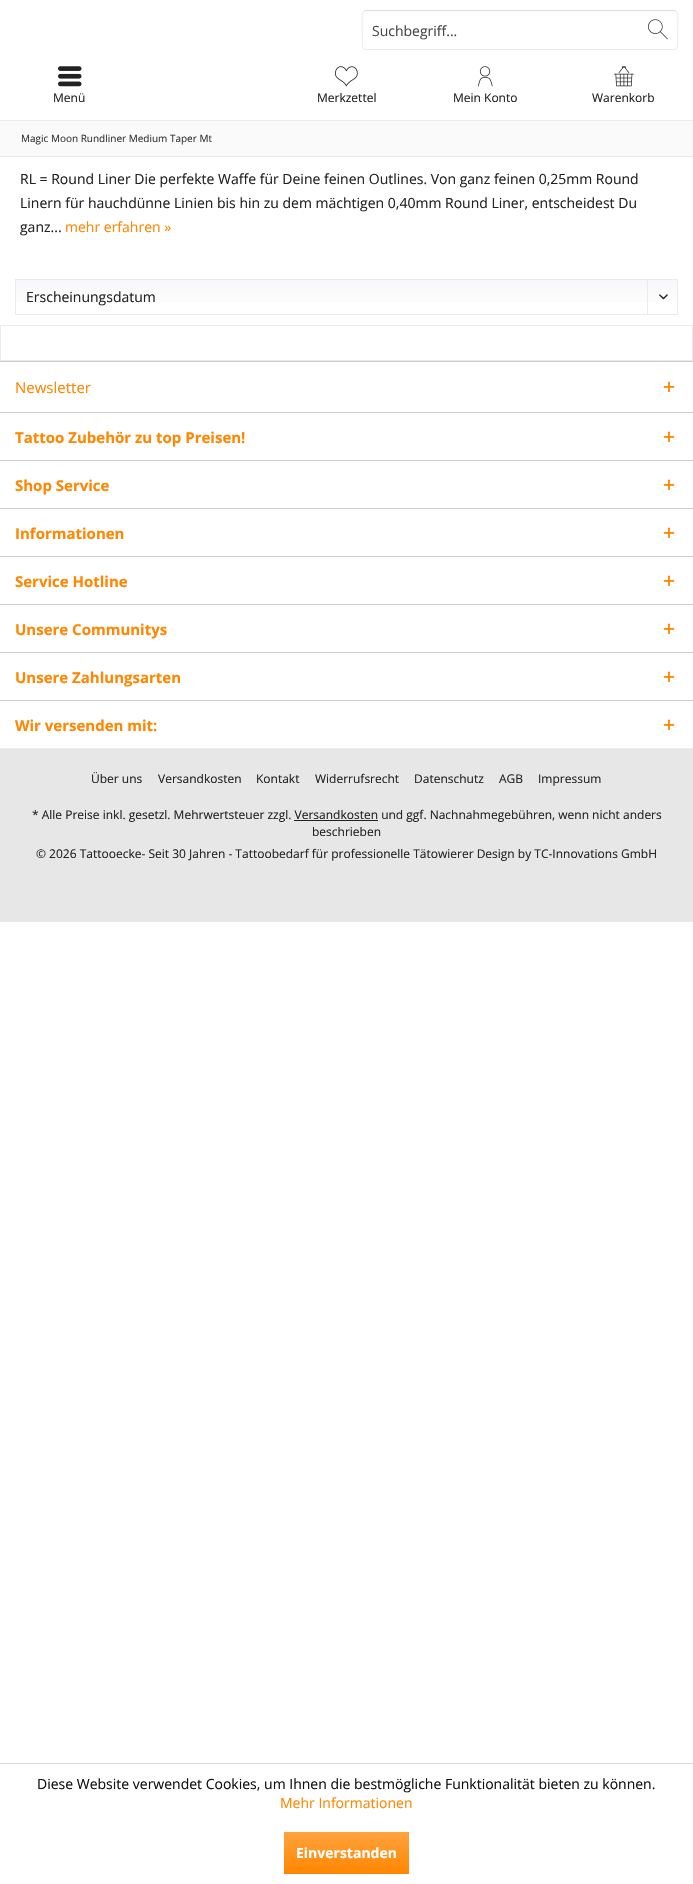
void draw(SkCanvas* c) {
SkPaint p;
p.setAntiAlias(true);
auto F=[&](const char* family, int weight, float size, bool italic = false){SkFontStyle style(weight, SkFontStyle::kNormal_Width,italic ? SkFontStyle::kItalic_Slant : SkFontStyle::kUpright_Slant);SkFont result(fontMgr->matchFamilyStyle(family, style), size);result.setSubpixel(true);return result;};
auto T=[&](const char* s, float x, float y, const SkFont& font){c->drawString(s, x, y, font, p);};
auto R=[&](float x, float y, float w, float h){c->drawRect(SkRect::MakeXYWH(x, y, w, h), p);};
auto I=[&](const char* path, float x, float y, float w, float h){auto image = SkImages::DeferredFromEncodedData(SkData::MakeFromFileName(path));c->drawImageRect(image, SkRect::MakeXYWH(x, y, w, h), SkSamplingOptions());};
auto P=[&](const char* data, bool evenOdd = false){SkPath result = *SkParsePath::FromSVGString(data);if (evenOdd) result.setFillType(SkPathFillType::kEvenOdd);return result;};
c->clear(0xffffffff);
p.setStroke(true);
p.setStrokeWidth(1);
p.setColor(0xffdbdbe5);
c->drawPath(P("M363.5 11.5l2.5-1h308l2.5 1"),p);
p.setColor(0xffeaeaf0);
c->drawPath(P("M676.5 11.5c2.5 2.5 1 20 1 24v5c0 3 1 9-3.5 9h-308c-4.5 0-3.5-6-3.5-9v-5c0-4-1.5-21.5 1-24"),p);
auto f1 = F("Open Sans",400,14);
p.setStroke(false);
p.setColor(0xff484848);
T("Suchbegriff...",372,36,f1);
I("1.png",648,19,20,21);
I("2.png",58,66,24,21);
auto f2 = F("Open Sans",400,12);
p.setColor(0xff222222);
T("Menü",53,102,f2);
I("3.png",335,66,23,21);
T("Merkzettel",317,102,f2);
I("4.png",478,66,15,21);
T("Mein Konto",453,102,f2);
I("5.png",614,66,20,21);
T("Warenkorb",592,102,f2);
p.setColor(0xffeaeaf0);
R(0,156,693,1);
p.setColor(0xfffafafa);
R(0,121,693,35);
p.setColor(0xffeaeaf0);
R(0,120,693,1);
auto f3 = F("Open Sans",400,10);
p.setColor(0xff333333);
T("Magic Moon Rundliner Medium Taper Mt",21,142,f3);
p.setColor(0xff222222);
T("RL = Round Liner Die perfekte Waffe für Deine feinen Outlines. Von ganz feinen 0,25mm Round",20,184,f1);
T("Linern für hauchdünne Linien bis hin zu dem mächtigen 0,40mm Round Liner, entscheidest Du",20,208,f1);
T("ganz...",20,232,f1);
p.setColor(0xffff8600);
T("mehr erfahren »",65,232,f1);
{
const SkColor colors[] = {0xfff8f8fa,0xffffffff};
const float stops[] = {0,1};
const SkPoint ends[] = {{347,280}, {347,314}};
p.setShader(SkGradientShader::MakeLinear(ends, colors, stops, 2, SkTileMode::kClamp));
p.setAlpha(255);
}
R(16,280,661,22);
p.setStroke(true);
p.setShader(nullptr);
p.setColor(0xffeaeaf0);
c->drawRect(SkRect::MakeXYWH(15.5,279.5,662,35),p);
p.setStroke(false);
p.setColor(0xff222222);
T("Erscheinungsdatum",26,302,f1);
p.setColor(0xffeaeaf0);
R(647,280,1,35);
I("6.png",659,294,9,6);
p.setStroke(true);
c->drawRect(SkRect::MakeXYWH(.5,325.5,692,35),p);
p.setStroke(false);
p.setColor(0xffcccccc);
R(0,361,693,1);
auto f4 = F("Open Sans",400,15);
p.setColor(0xffff8600);
T("Newsletter",15,393,f4);
I("7.png",663,381,12,12);
p.setColor(0xffcccccc);
R(0,412,693,1);
auto f5 = F("Open Sans",700,15);
p.setColor(0xffff8600);
T("Tattoo Zubehör zu top Preisen!",15,443,f5);
I("7.png",663,431,12,12);
p.setColor(0xffcccccc);
R(0,460,693,1);
p.setColor(0xffff8600);
T("Shop Service",15,491,f5);
I("7.png",663,479,12,12);
p.setColor(0xffcccccc);
R(0,508,693,1);
p.setColor(0xffff8600);
T("Informationen",15,539,f5);
I("7.png",663,527,12,12);
p.setColor(0xffcccccc);
R(0,556,693,1);
p.setColor(0xffff8600);
T("Service Hotline",15,587,f5);
I("7.png",663,575,12,12);
p.setColor(0xffcccccc);
R(0,604,693,1);
p.setColor(0xffff8600);
T("Unsere Communitys",15,635,f5);
I("7.png",663,623,12,12);
p.setColor(0xffcccccc);
R(0,652,693,1);
p.setColor(0xffff8600);
T("Unsere Zahlungsarten",15,683,f5);
I("7.png",663,671,12,12);
p.setColor(0xffcccccc);
R(0,700,693,1);
p.setColor(0xffff8600);
T("Wir versenden mit:",15,731,f5);
I("7.png",663,719,12,12);
p.setColor(0xffe7e7e7);
R(0,749,693,173);
p.setColor(0xffeaeaf0);
R(0,748,693,1);
p.setColor(0xff222222);
T("Über uns",91,783,f2);
T("Versandkosten",158,783,f2);
T("Kontakt",256,783,f2);
T("Widerrufsrecht",315,783,f2);
T("Datenschutz",414,783,f2);
T("AGB",499,783,f2);
T("Impressum",538,783,f2);
T("* Alle Preise inkl. gesetzl. Mehrwertsteuer zzgl. Versandkosten und ggf. Nachnahmegebühren, wenn nicht anders",32,819,f2);
R(294,820,84,1);
T("beschrieben",312,836,f2);
T("© 2026 Tattooecke- Seit 30 Jahren - Tattoobedarf für professionelle Tätowierer Design by TC-Innovations GmbH",36,858,f2);
p.setColor(0xffdadae5);
R(0,1763,693,1);
p.setColor(0xff111111);
T("Diese Website verwendet Cookies, um Ihnen die bestmögliche Funktionalität bieten zu können.",37,1789,f1);
p.setColor(0xffff8600);
T("Mehr Informationen",280,1808,f1);
{
const SkColor colors[] = {0xffffa33d,0xffff8600};
const float stops[] = {0,1};
const SkPoint ends[] = {{347,1832}, {347,1874}};
p.setShader(SkGradientShader::MakeLinear(ends, colors, stops, 2, SkTileMode::kClamp));
p.setAlpha(255);
}
R(284,1832,125,42);
auto f6 = F("Open Sans",700,14);
p.setShader(nullptr);
p.setColor(0xffffffff);
T("Einverstanden",296,1858,f6);
}
